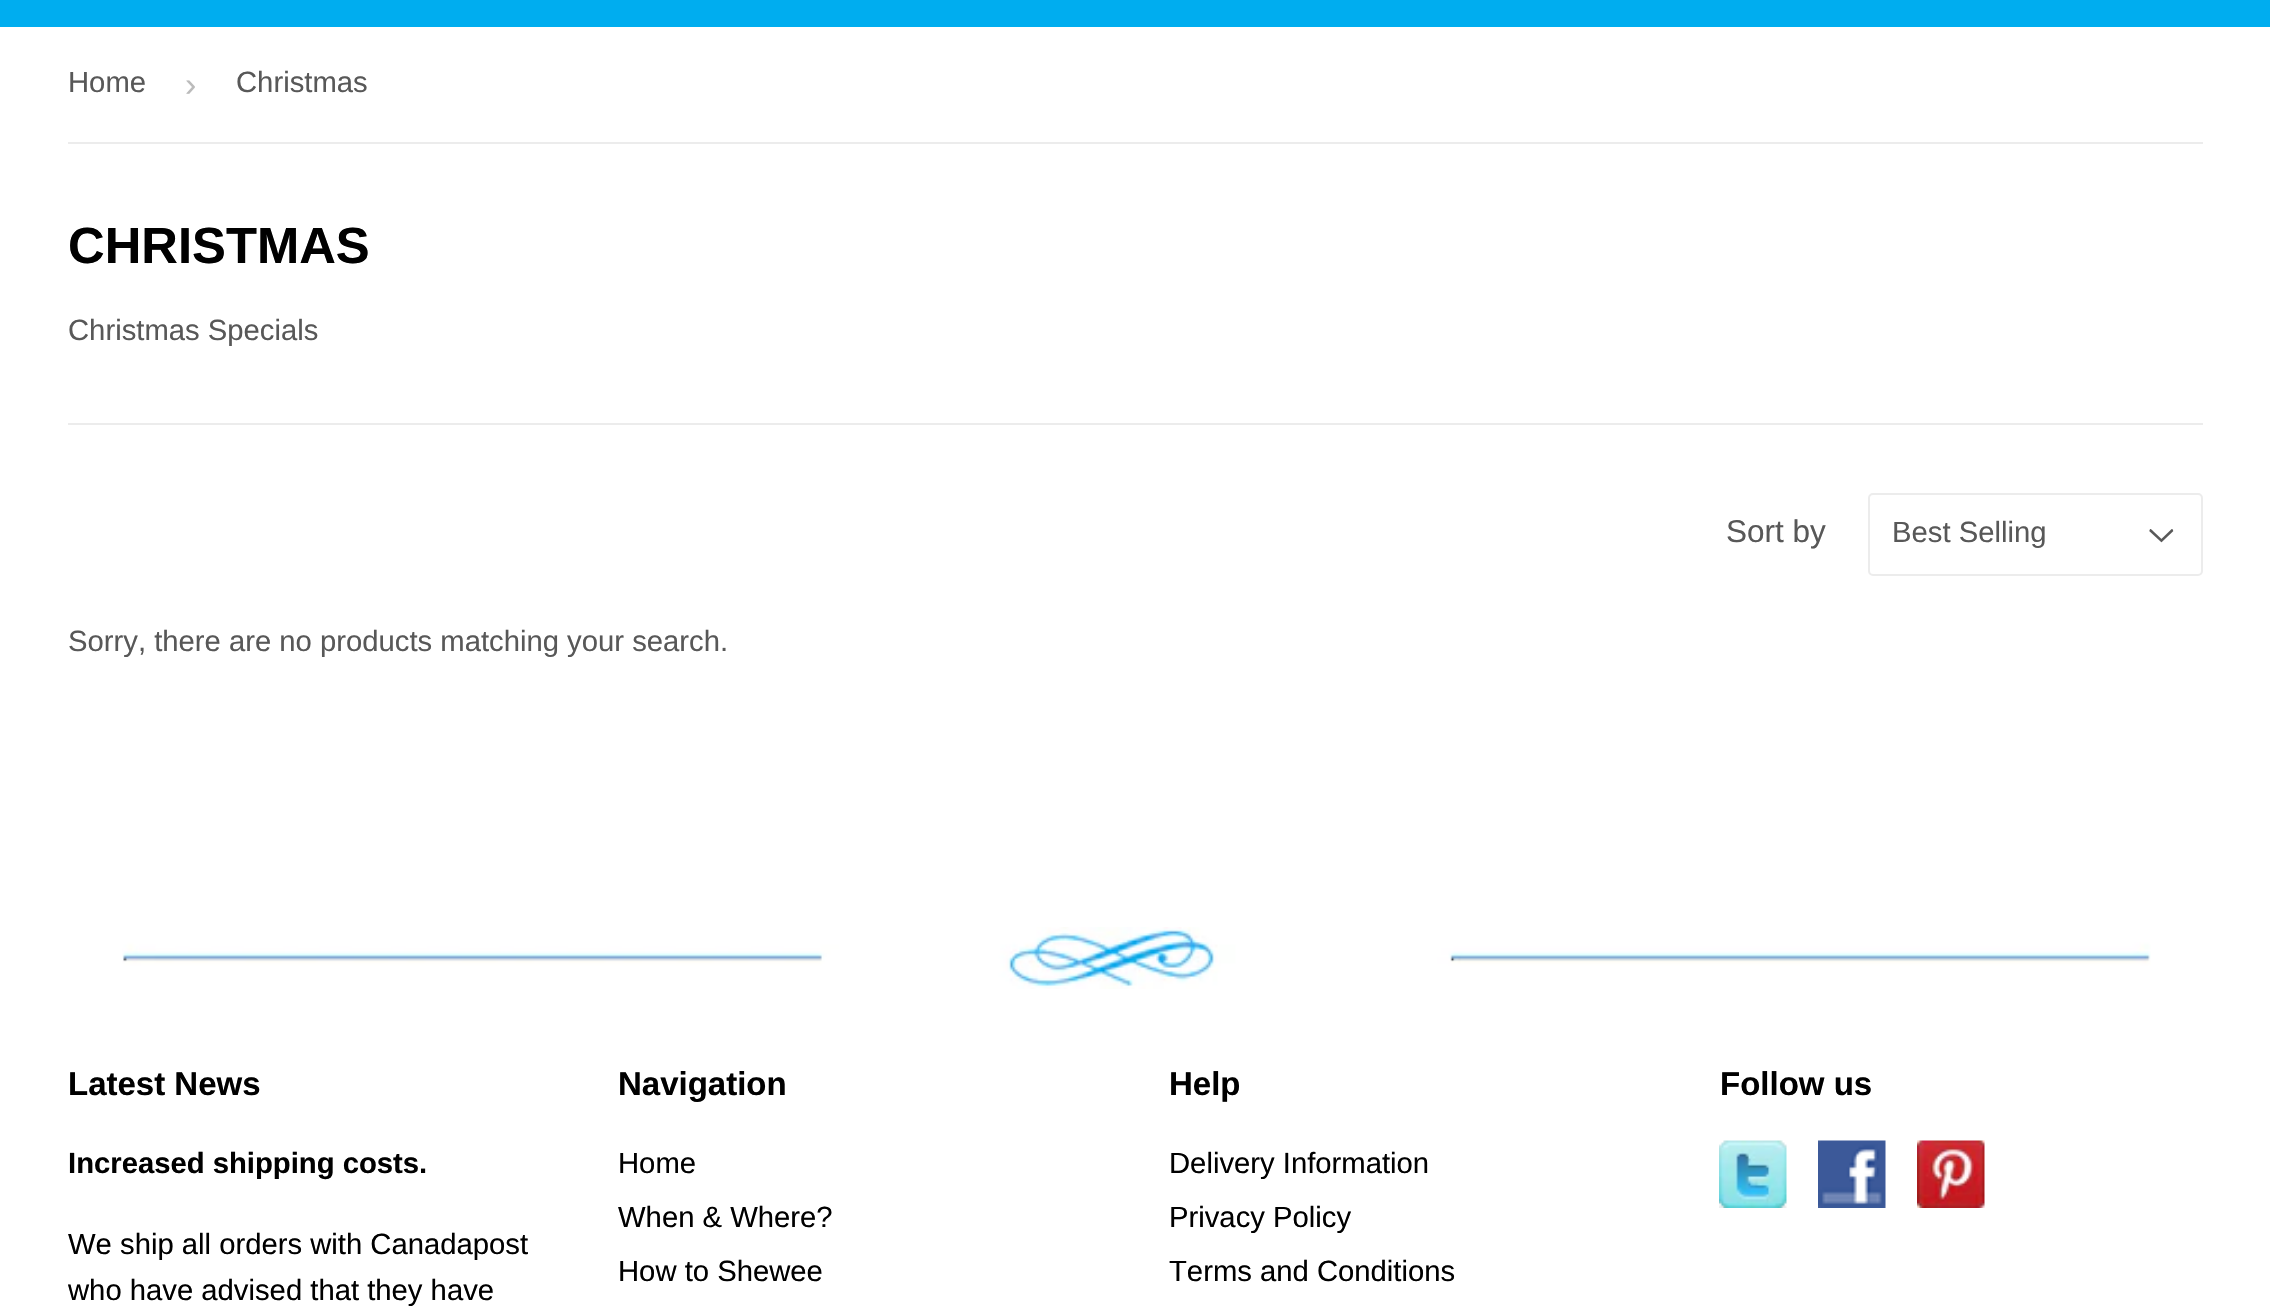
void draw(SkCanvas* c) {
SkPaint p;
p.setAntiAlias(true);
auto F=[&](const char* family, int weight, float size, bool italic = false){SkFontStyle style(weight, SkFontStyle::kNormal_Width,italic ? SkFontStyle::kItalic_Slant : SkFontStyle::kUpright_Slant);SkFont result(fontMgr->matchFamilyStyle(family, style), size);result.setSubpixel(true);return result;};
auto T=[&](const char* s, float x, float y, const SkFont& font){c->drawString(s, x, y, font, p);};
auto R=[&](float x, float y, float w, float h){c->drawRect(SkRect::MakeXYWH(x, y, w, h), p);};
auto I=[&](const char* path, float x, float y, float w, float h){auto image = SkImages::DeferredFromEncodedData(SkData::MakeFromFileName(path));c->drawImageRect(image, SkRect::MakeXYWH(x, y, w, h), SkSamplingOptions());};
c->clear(0xffffffff);
p.setColor(0xff00adef);
R(0,0,2270,27);
p.setColor(0xffececec);
R(68,142,2135,2);
auto f1 = F("Liberation Sans",400,29.25);
p.setColor(0xff585858);
T("Home",68,92,f1);
auto f2 = F("Liberation Sans",400,34);
p.setColor(0xffbbbbbb);
T("›",185,96,f2);
p.setColor(0xff585858);
T("Christmas",236,92,f1);
auto f3 = F("Liberation Sans",700,50.75);
p.setColor(0xff000000);
T("CHRISTMAS",68,263,f3);
p.setColor(0xff585858);
T("Christmas Specials",68,340,f1);
p.setColor(0xffececec);
R(68,423,2135,2);
auto f4 = F("Liberation Sans",400,31.5);
p.setColor(0xff585858);
T("Sort by",1726,542,f4);
I("1.png",2149,529,25,14);
p.setStroke(true);
p.setStrokeWidth(2);
p.setColor(0xffececec);
c->drawRoundRect(SkRect::MakeXYWH(1869,494,333,81),4,4,p);
p.setStroke(false);
p.setColor(0xff585858);
T("Best Selling",1892,542,f1);
T("Sorry, there are no products matching your search.",68,651,f1);
I("2.png",122,927,2029,62);
auto f5 = F("Liberation Sans",700,33);
p.setColor(0xff000000);
T("Latest News",68,1095,f5);
auto f6 = F("Liberation Sans",700,29.25);
T("Increased shipping costs.",68,1173,f6);
T("We ship all orders with Canadapost",68,1254,f1);
T("who have advised that they have",68,1300,f1);
T("Navigation",618,1095,f5);
T("Home",618,1173,f1);
T("When & Where?",618,1227,f1);
T("How to Shewee",618,1281,f1);
T("Help",1169,1095,f5);
T("Delivery Information",1169,1173,f1);
T("Privacy Policy",1169,1227,f1);
T("Terms and Conditions",1169,1281,f1);
T("Follow us",1720,1095,f5);
I("3.png",1719,1140,68,68);
I("4.png",1818,1140,68,68);
I("5.png",1917,1140,68,68);
}
